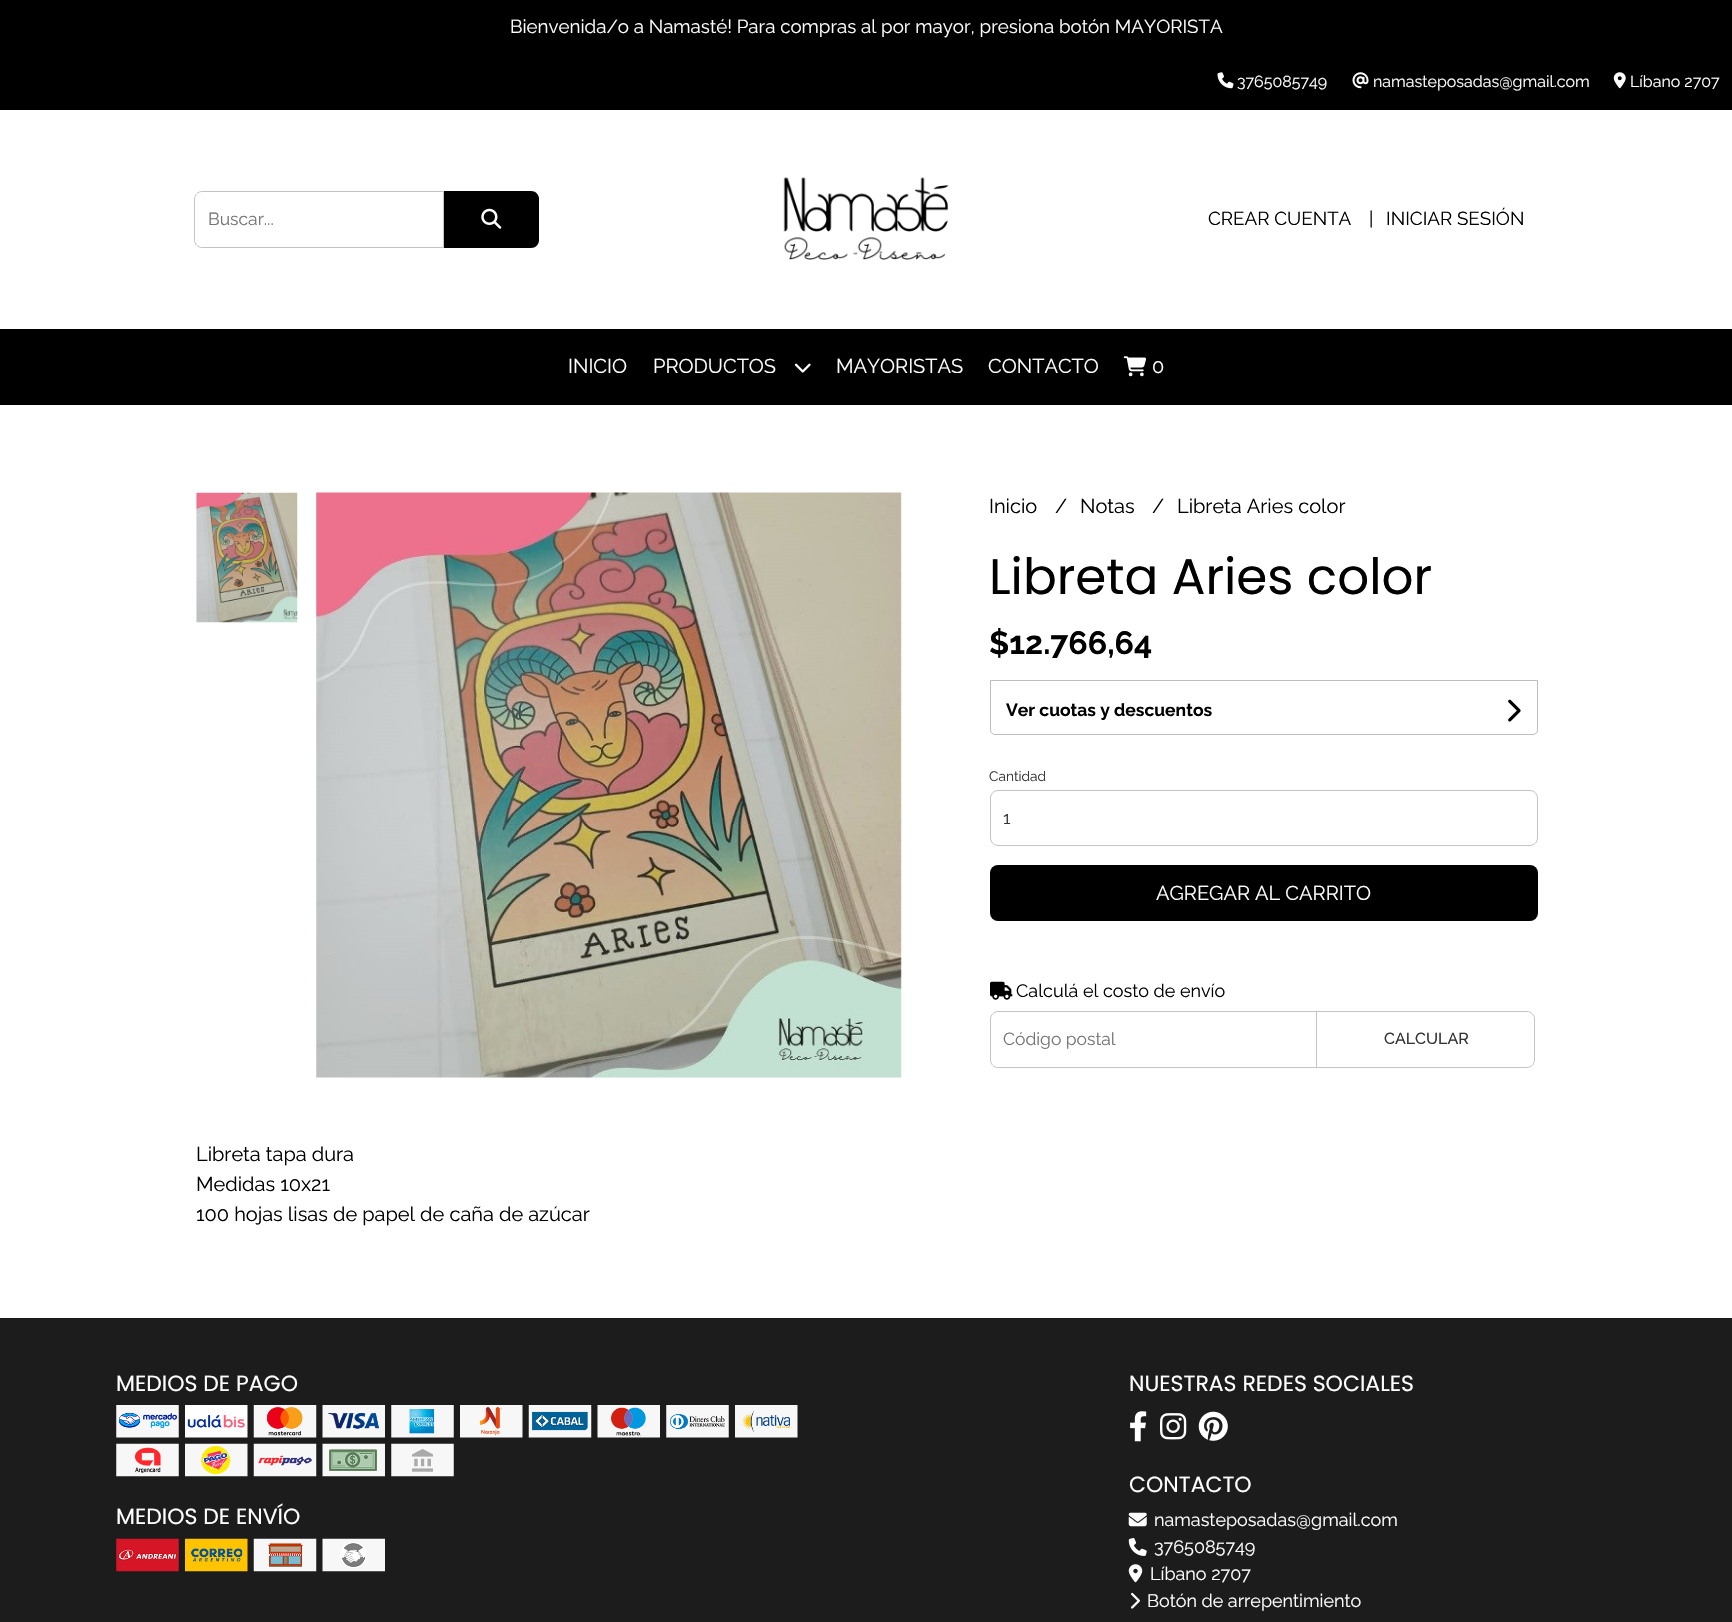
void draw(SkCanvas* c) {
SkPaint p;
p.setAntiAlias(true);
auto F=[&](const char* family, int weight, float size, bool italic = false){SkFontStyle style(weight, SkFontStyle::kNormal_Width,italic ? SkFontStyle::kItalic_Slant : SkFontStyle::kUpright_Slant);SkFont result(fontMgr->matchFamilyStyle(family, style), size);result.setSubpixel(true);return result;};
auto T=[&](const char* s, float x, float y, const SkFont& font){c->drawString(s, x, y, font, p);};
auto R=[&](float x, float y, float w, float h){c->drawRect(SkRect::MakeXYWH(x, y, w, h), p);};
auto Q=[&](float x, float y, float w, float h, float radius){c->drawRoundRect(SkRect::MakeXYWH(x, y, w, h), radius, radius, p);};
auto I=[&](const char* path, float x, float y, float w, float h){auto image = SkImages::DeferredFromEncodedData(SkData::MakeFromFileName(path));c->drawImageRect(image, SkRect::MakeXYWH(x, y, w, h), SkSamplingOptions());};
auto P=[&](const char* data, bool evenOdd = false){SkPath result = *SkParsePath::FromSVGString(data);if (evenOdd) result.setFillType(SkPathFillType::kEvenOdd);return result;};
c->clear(0xffffffff);
p.setColor(0xff000000);
R(0,0,1732,110);
auto f1 = F("Raleway",400,18.75);
p.setColor(0xffffffff);
T("Bienvenida/o a Namasté! Para compras al por mayor, presiona botón MAYORISTA",510,33,f1);
I("1.png",1217,72,17,17);
auto f2 = F("Raleway",400,16);
T("3765085749",1237,87,f2);
I("2.png",1352,72,17,17);
T("namasteposadas@gmail.com",1373,87,f2);
I("3.png",1613,72,13,17);
T("Líbano 2707",1630,87,f2);
p.setStroke(true);
p.setStrokeWidth(1);
p.setColor(0xffc4c4c4);
c->drawPath(P("M202 191.5h241.5v56h-241.5c-4 0-7.5-3.5-7.5-7.5v-41c0-4 3.5-7.5 7.5-7.5z"),p);
auto f3 = F("Raleway",400,17.5);
p.setStroke(false);
p.setColor(0xff757575);
T("Buscar...",208,225,f3);
p.setColor(0xff000000);
c->drawPath(P("M444 191h87c4.5 0 8 3.5 8 8v41c0 4.5-3.5 8-8 8h-87z"),p);
I("4.png",481,208,21,21);
I("5.png",783,177,166,83);
T("CREAR CUENTA",1208,225,f1);
T("|",1369,225,f1);
T("INICIAR SESIÓN",1386,225,f1);
R(0,329,1732,76);
auto f4 = F("Raleway",400,20);
p.setColor(0xffffffff);
T("INICIO",568,373,f4);
T("PRODUCTOS",653,373,f4);
I("6.png",794,363,17,10);
T("MAYORISTAS",836,373,f4);
T("CONTACTO",988,373,f4);
I("7.png",1123,356,23,21);
T("0",1152,373,f4);
p.setColor(0xff000000);
T("Inicio",989,513,f4);
T("/",1055,513,f4);
T("Notas",1080,513,f4);
T("/",1152,513,f4);
T("Libreta Aries color",1177,513,f4);
auto f5 = F("Poppins",400,50);
T("Libreta Aries color",989,594,f5);
auto f6 = F("Raleway",700,32);
T("$12.766,64",989,654,f6);
p.setStroke(true);
p.setColor(0xffbdbdbd);
c->drawPath(P("M990.5 680.5h547v49.5c0 2.5-2 4.5-4.5 4.5h-538c-2.5 0-4.5-2-4.5-4.5z"),p);
auto f7 = F("Raleway",700,17.5);
p.setStroke(false);
p.setColor(0xff000000);
T("Ver cuotas y descuentos",1006,716,f7);
I("8.png",1508,699,13,23);
auto f8 = F("Raleway",400,13.75);
p.setColor(0xff333333);
T("Cantidad",989,781,f8);
p.setStroke(true);
p.setColor(0xffc4c4c4);
c->drawRoundRect(SkRect::MakeXYWH(990.5,790.5,547,55),7.5,7.5,p);
p.setStroke(false);
p.setColor(0xff333333);
T("1",1003,824,f3);
p.setColor(0xff000000);
Q(990,865,548,56,8);
p.setColor(0xffffffff);
T("AGREGAR AL CARRITO",1156,900,f4);
I("9.png",990,981,23,19);
auto f9 = F("Raleway",400,18);
p.setColor(0xff000000);
T("Calculá el costo de envío",1016,997,f9);
p.setStroke(true);
p.setColor(0xffc4c4c4);
c->drawPath(P("M998 1011.5h319.5v56h-319.5c-4 0-7.5-3.5-7.5-7.5v-41c0-4 3.5-7.5 7.5-7.5z"),p);
p.setStroke(false);
p.setColor(0xff757575);
T("Código postal",1003,1045,f3);
p.setColor(0xffffffff);
c->drawPath(P("M1316.5 1011.5h210.5c4 0 7.5 3.5 7.5 7.5v41c0 4-3.5 7.5-7.5 7.5h-210.5z"),p);
p.setStroke(true);
p.setColor(0xffc4c4c4);
c->drawPath(P("M1316.5 1011.5h210.5c4 0 7.5 3.5 7.5 7.5v41c0 4-3.5 7.5-7.5 7.5h-210.5z"),p);
auto f10 = F("Raleway",500,16);
p.setStroke(false);
p.setColor(0xff333333);
T("CALCULAR",1384,1044,f10);
I("10.png",196,492,102,131);
I("11.png",316,492,586,586);
p.setColor(0xff000000);
T("Libreta tapa dura",196,1161,f4);
T("Medidas 10x21",196,1191,f4);
T("100 hojas lisas de papel de caña de azúcar",196,1221,f4);
p.setColor(0xff1c1c1c);
R(0,1319,1732,303);
p.setColor(0xff191919);
R(0,1318,1732,1);
auto f11 = F("Poppins",400,22);
p.setColor(0xffffffff);
T("MEDIOS DE PAGO",116,1391,f11);
I("12.png",116,1405,63,33);
I("13.png",185,1405,63,33);
I("14.png",253,1405,64,33);
I("15.png",322,1405,63,33);
I("16.png",391,1405,63,33);
I("17.png",460,1405,63,33);
I("18.png",528,1405,64,33);
I("19.png",597,1405,63,33);
I("20.png",666,1405,63,33);
I("21.png",735,1405,63,33);
I("22.png",116,1443,63,34);
I("23.png",185,1443,63,34);
I("24.png",253,1443,64,34);
I("25.png",322,1443,63,34);
I("26.png",391,1443,63,34);
T("MEDIOS DE ENVÍO",116,1524,f11);
I("27.png",116,1538,63,34);
I("28.png",185,1538,63,34);
I("29.png",253,1538,64,34);
I("30.png",322,1538,63,34);
T("NUESTRAS REDES SOCIALES",1129,1391,f11);
I("31.png",1130,1411,17,31);
I("32.png",1160,1413,27,27);
I("33.png",1198,1411,30,30);
T("CONTACTO",1129,1492,f11);
I("34.png",1128,1512,19,15);
T("namasteposadas@gmail.com",1154,1526,f9);
I("35.png",1128,1538,19,18);
T("3765085749",1154,1553,f9);
I("36.png",1128,1564,15,19);
T("Líbano 2707",1150,1580,f9);
I("37.png",1131,1592,9,17);
T("Botón de arrepentimiento",1147,1607,f9);
}
